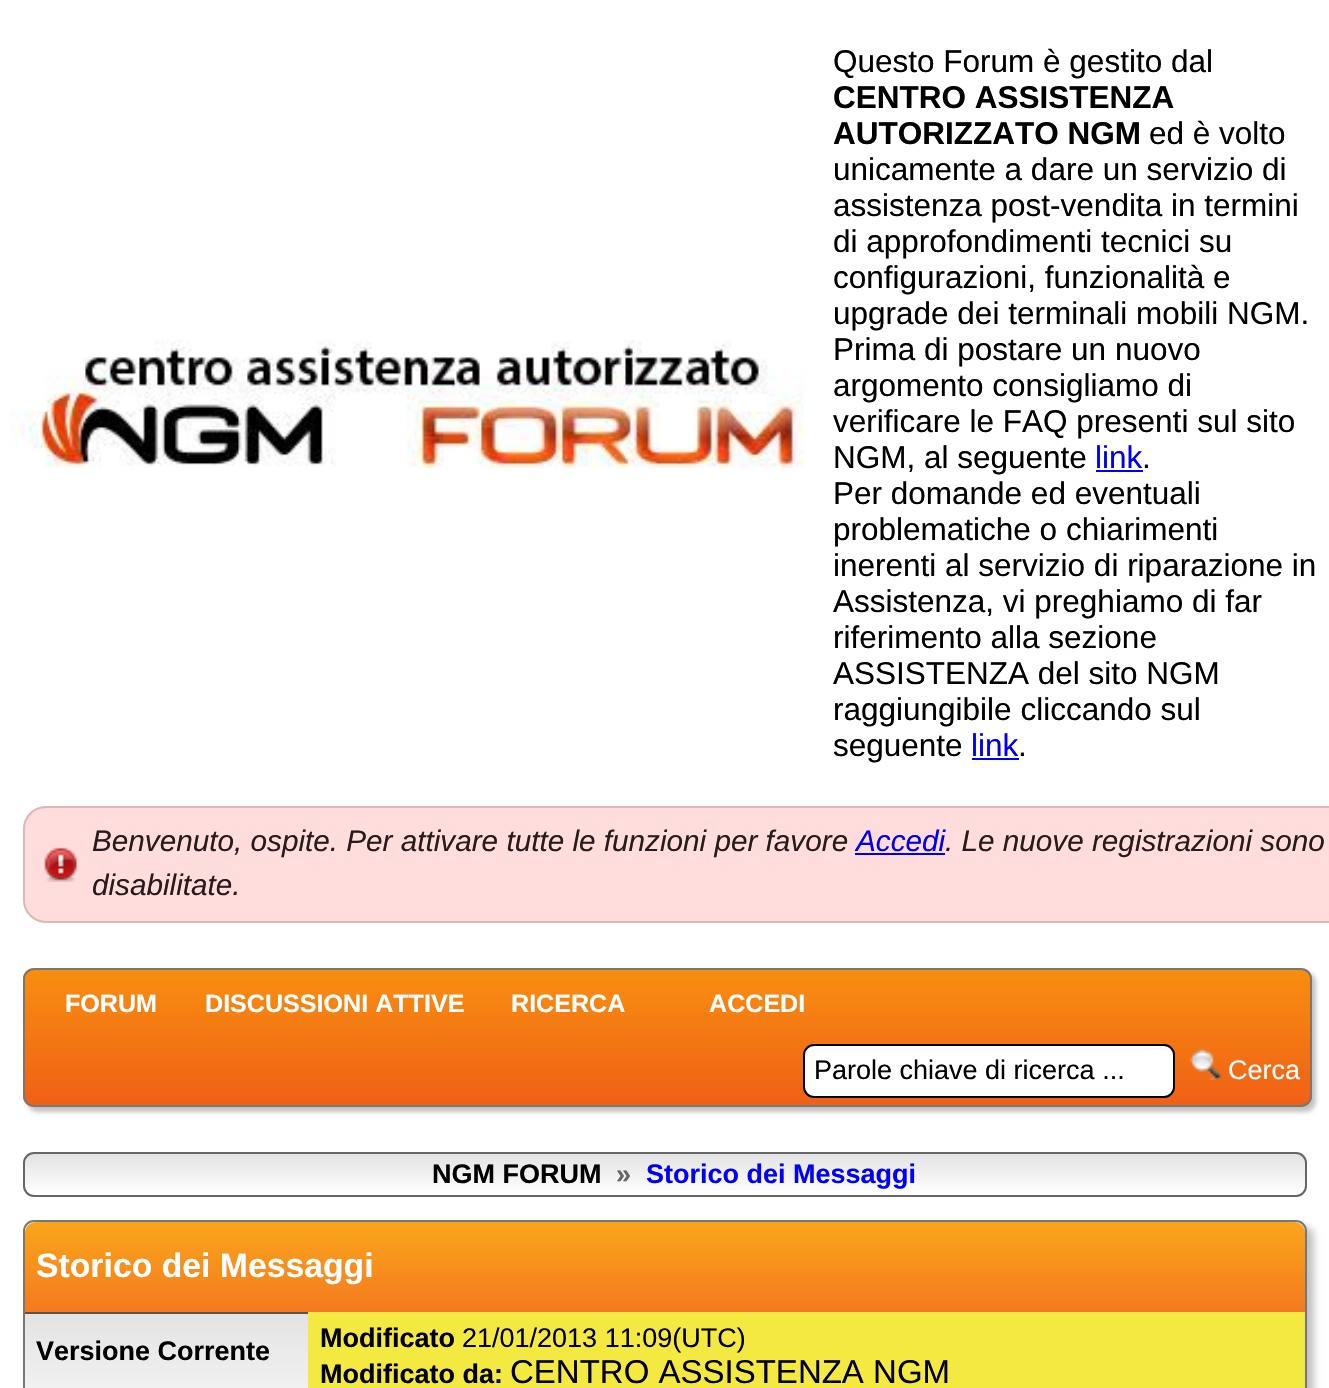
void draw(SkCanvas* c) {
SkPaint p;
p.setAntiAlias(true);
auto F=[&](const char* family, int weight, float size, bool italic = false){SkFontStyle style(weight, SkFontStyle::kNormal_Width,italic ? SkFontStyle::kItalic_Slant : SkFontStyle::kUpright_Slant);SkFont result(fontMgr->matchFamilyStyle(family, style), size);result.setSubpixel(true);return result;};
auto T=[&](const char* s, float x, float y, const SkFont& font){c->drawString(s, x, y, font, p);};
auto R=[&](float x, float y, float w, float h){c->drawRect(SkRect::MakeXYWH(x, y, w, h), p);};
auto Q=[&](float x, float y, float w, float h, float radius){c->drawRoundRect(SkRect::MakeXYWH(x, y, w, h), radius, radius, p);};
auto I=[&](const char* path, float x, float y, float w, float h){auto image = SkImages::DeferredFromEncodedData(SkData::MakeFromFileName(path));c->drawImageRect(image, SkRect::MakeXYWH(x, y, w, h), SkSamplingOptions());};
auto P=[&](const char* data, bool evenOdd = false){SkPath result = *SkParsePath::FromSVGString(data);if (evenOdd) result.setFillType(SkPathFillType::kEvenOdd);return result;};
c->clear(0xffffffff);
I("1.png",11,340,793,128);
auto f1 = F("Liberation Sans",400,31.5);
p.setColor(0xff000000);
T("Questo Forum è gestito dal",833,72,f1);
auto f2 = F("Liberation Sans",700,31.5);
T("CENTRO ASSISTENZA",833,108,f2);
T("AUTORIZZATO NGM",833,144,f2);
T("ed è volto",1149,144,f1);
T("unicamente a dare un servizio di",833,180,f1);
T("assistenza post-vendita in termini",833,216,f1);
T("di approfondimenti tecnici su",833,252,f1);
T("configurazioni, funzionalità e",833,288,f1);
T("upgrade dei terminali mobili NGM.",833,324,f1);
T("Prima di postare un nuovo",833,360,f1);
T("argomento consigliamo di",833,396,f1);
T("verificare le FAQ presenti sul sito",833,432,f1);
T("NGM, al seguente",833,468,f1);
p.setColor(0xff0000ee);
T("link",1095,468,f1);
R(1096,470,47,2);
p.setColor(0xff000000);
T(".",1142,468,f1);
T("Per domande ed eventuali",833,504,f1);
T("problematiche o chiarimenti",833,540,f1);
T("inerenti al servizio di riparazione in",833,576,f1);
T("Assistenza, vi preghiamo di far",833,612,f1);
T("riferimento alla sezione",833,648,f1);
T("ASSISTENZA del sito NGM",833,684,f1);
T("raggiungibile cliccando sul",833,720,f1);
T("seguente",833,756,f1);
p.setColor(0xff0000ee);
T("link",971,756,f1);
R(972,758,47,2);
p.setColor(0xff000000);
T(".",1018,756,f1);
p.setColor(0xffffdddd);
Q(23,806,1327,117,23);
I("2.png",44,847,34,35);
p.setStroke(true);
p.setStrokeWidth(2);
p.setColor(0xffdeb7b7);
c->drawRoundRect(SkRect::MakeXYWH(24,807,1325,115),22,22,p);
auto f3 = F("Liberation Sans",400,29.7,true);
p.setStroke(false);
p.setColor(0xff281b1b);
T("Benvenuto, ospite. Per attivare tutte le funzioni per favore",92,851,f3);
p.setColor(0xff0000ee);
T("Accedi",856,851,f3);
R(855,853,90,2);
p.setColor(0xff281b1b);
T(". Le nuove registrazioni sono",945,851,f3);
T("disabilitate.",92,895,f3);
p.setColor(0xffc3c3c3);
p.setMaskFilter(SkMaskFilter::MakeBlur(kNormal_SkBlurStyle, 2));
c->drawRoundRect(SkRect::MakeXYWH(27,972,1289,140),11,11,p);
p.setMaskFilter(nullptr);
c->save();
c->clipPath(P("M34 968h1267c6 0 11 5 11 11v117c0 6-5 11-11 11h-1267c-6 0-11-5-11-11v-117c0-6 5-11 11-11z"),true);
{
const SkColor colors[] = {0xfff88e11,0xfff06015};
const float stops[] = {0,1};
const SkPoint ends[] = {{25,970}, {25,1105}};
p.setShader(SkGradientShader::MakeLinear(ends, colors, stops, 2, SkTileMode::kClamp));
p.setAlpha(255);
}
R(23,970,1289,135);
c->restore();
p.setStroke(true);
p.setShader(nullptr);
p.setColor(0xff777777);
c->drawRoundRect(SkRect::MakeXYWH(24,969,1287,137),10,10,p);
auto f4 = F("Liberation Sans",700,25.1);
p.setStroke(false);
p.setColor(0xffffffff);
T("FORUM",65,1012,f4);
T("DISCUSSIONI ATTIVE",205,1012,f4);
T("RICERCA",511,1012,f4);
T("ACCEDI",709,1012,f4);
c->drawRoundRect(SkRect::MakeXYWH(804,1045,370,52),10,10,p);
p.setStroke(true);
p.setColor(0xff000000);
c->drawRoundRect(SkRect::MakeXYWH(804,1045,370,52),10,10,p);
auto f5 = F("Liberation Sans",400,27);
p.setStroke(false);
T("Parole chiave di ricerca ...",814,1079,f5);
I("3.png",1190,1048,32,32);
p.setColor(0xffffffff);
T("Cerca",1228,1079,f5);
c->save();
c->clipPath(P("M34 1152h1262c6 0 11 5 11 11v23c0 6-5 11-11 11h-1262c-6 0-11-5-11-11v-23c0-6 5-11 11-11z"),true);
{
const SkColor colors[] = {0xffe3e3e3,0xffffffff};
const float stops[] = {0,1};
const SkPoint ends[] = {{25,1154}, {25,1195}};
p.setShader(SkGradientShader::MakeLinear(ends, colors, stops, 2, SkTileMode::kClamp));
p.setAlpha(255);
}
R(23,1154,1284,41);
c->restore();
p.setStroke(true);
p.setShader(nullptr);
p.setColor(0xff666666);
c->drawRoundRect(SkRect::MakeXYWH(24,1153,1282,43),10,10,p);
auto f6 = F("Liberation Sans",700,27);
p.setStroke(false);
p.setColor(0xff000000);
T("NGM FORUM",432,1183,f6);
p.setColor(0xff666666);
T("»",616,1183,f6);
p.setColor(0xff0000ff);
T("Storico dei Messaggi",646,1183,f6);
p.setColor(0xffc3c3c3);
p.setMaskFilter(SkMaskFilter::MakeBlur(kNormal_SkBlurStyle, 3.5));
c->drawRoundRect(SkRect::MakeXYWH(29,1226,1285,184),11,11,p);
p.setMaskFilter(nullptr);
p.setStroke(true);
p.setColor(0xff777777);
c->drawRoundRect(SkRect::MakeXYWH(24,1221,1282,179),10,10,p);
p.setStroke(false);
{
const SkColor colors[] = {0xfffaa51a,0xfff47a20};
const float stops[] = {0,1};
const SkPoint ends[] = {{25,1222}, {25,1312}};
p.setShader(SkGradientShader::MakeLinear(ends, colors, stops, 2, SkTileMode::kClamp));
p.setAlpha(255);
}
c->drawPath(P("M36 1222h1258c6 0 11 5 11 11v79h-1280v-79c0-6 5-11 11-11z"),p);
auto f7 = F("Liberation Sans",700,33.75);
p.setShader(nullptr);
p.setColor(0xffffffff);
T("Storico dei Messaggi",36,1277,f7);
{
const SkColor colors[] = {0xffe3e3e3,0xffffffff};
const float stops[] = {0,1};
const SkPoint ends[] = {{25,1314}, {25,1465}};
p.setShader(SkGradientShader::MakeLinear(ends, colors, stops, 2, SkTileMode::kClamp));
p.setAlpha(255);
}
R(25,1314,283,74);
p.setShader(nullptr);
p.setColor(0xff555555);
R(25,1312,283,2);
p.setColor(0xff000000);
T("Versione Corrente",36,1360,f6);
p.setColor(0xfff4e941);
R(308,1312,997,76);
p.setColor(0xff000000);
T("Modificato",320,1347,f6);
T("21/01/2013 11:09(UTC)",462,1347,f5);
T("Modificato da:",320,1383,f6);
auto f8 = F("Liberation Sans",400,33);
T("CENTRO ASSISTENZA NGM",510,1383,f8);
}
